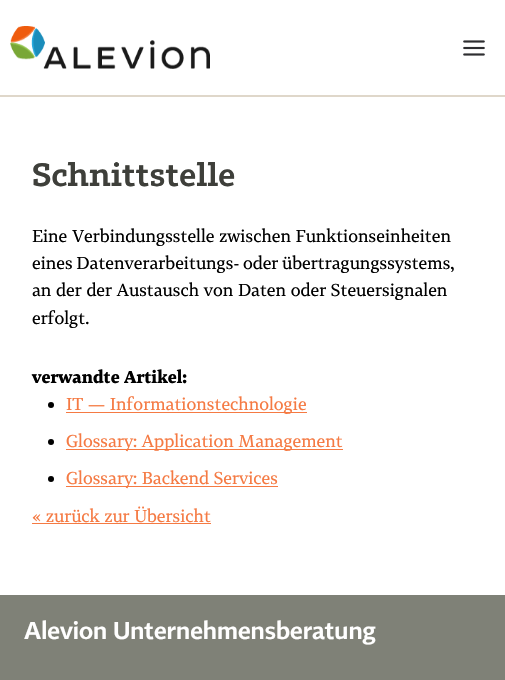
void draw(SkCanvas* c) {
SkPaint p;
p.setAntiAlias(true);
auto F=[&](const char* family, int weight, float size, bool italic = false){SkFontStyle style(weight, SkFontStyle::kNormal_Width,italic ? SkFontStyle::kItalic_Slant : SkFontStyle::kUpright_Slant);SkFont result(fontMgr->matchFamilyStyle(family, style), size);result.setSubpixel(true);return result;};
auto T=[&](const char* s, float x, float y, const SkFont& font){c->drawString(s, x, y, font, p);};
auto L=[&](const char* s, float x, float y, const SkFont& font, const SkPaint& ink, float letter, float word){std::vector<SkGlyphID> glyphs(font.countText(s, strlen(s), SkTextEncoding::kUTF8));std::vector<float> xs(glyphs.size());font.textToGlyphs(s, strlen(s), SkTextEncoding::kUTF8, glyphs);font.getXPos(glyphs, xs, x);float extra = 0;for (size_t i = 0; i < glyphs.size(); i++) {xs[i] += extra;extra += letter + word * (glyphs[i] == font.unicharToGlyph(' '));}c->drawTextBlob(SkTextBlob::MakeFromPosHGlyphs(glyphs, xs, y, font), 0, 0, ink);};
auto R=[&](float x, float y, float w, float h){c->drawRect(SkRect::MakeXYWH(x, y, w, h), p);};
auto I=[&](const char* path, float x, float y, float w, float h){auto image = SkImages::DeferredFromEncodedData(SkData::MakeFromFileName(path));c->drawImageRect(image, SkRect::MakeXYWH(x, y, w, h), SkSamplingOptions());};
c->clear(0xffffffff);
p.setColor(0xffdfd7ca);
R(0,95,505,2);
I("1.png",10,26,200,43);
I("2.png",463,40,22,16);
auto f1 = F("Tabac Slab",600,32);
p.setColor(0xff3e3f3a);
T("Schnittstelle",32,186,f1);
auto f2 = F("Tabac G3",400,17);
p.setColor(0xff000000);
T("Eine Verbindungsstelle zwischen Funktionseinheiten",32,242,f2);
L("eines Datenverarbeitungs- oder ‑übertragungssystems,",32,269,f2,p,0,-1);
T("an der der Austausch von Daten oder Steuersignalen",32,296,f2);
T("erfolgt.",32,324,f2);
auto f3 = F("Tabac G3",700,17);
T("verwandte Artikel:",32,383,f3);
c->drawCircle(51,405,3,p);
p.setColor(0xfff57a43);
R(66,412,241,1);
T("IT — Informationstechnologie",66,410,f2);
p.setColor(0xff000000);
c->drawCircle(51,442,3,p);
p.setColor(0xfff57a43);
R(66,449,277,1);
T("Glossary: Application Management",66,447,f2);
p.setColor(0xff000000);
c->drawCircle(51,479,3,p);
p.setColor(0xfff57a43);
R(66,486,212,1);
T("Glossary: Backend Services",66,484,f2);
T("« zurück zur Übersicht",32,522,f2);
R(32,523,179,1);
p.setColor(0xff7f8177);
R(0,595,505,85);
auto f4 = F("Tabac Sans",600,24);
p.setColor(0xffffffff);
T("Alevion Unternehmensberatung",24,639,f4);
}
